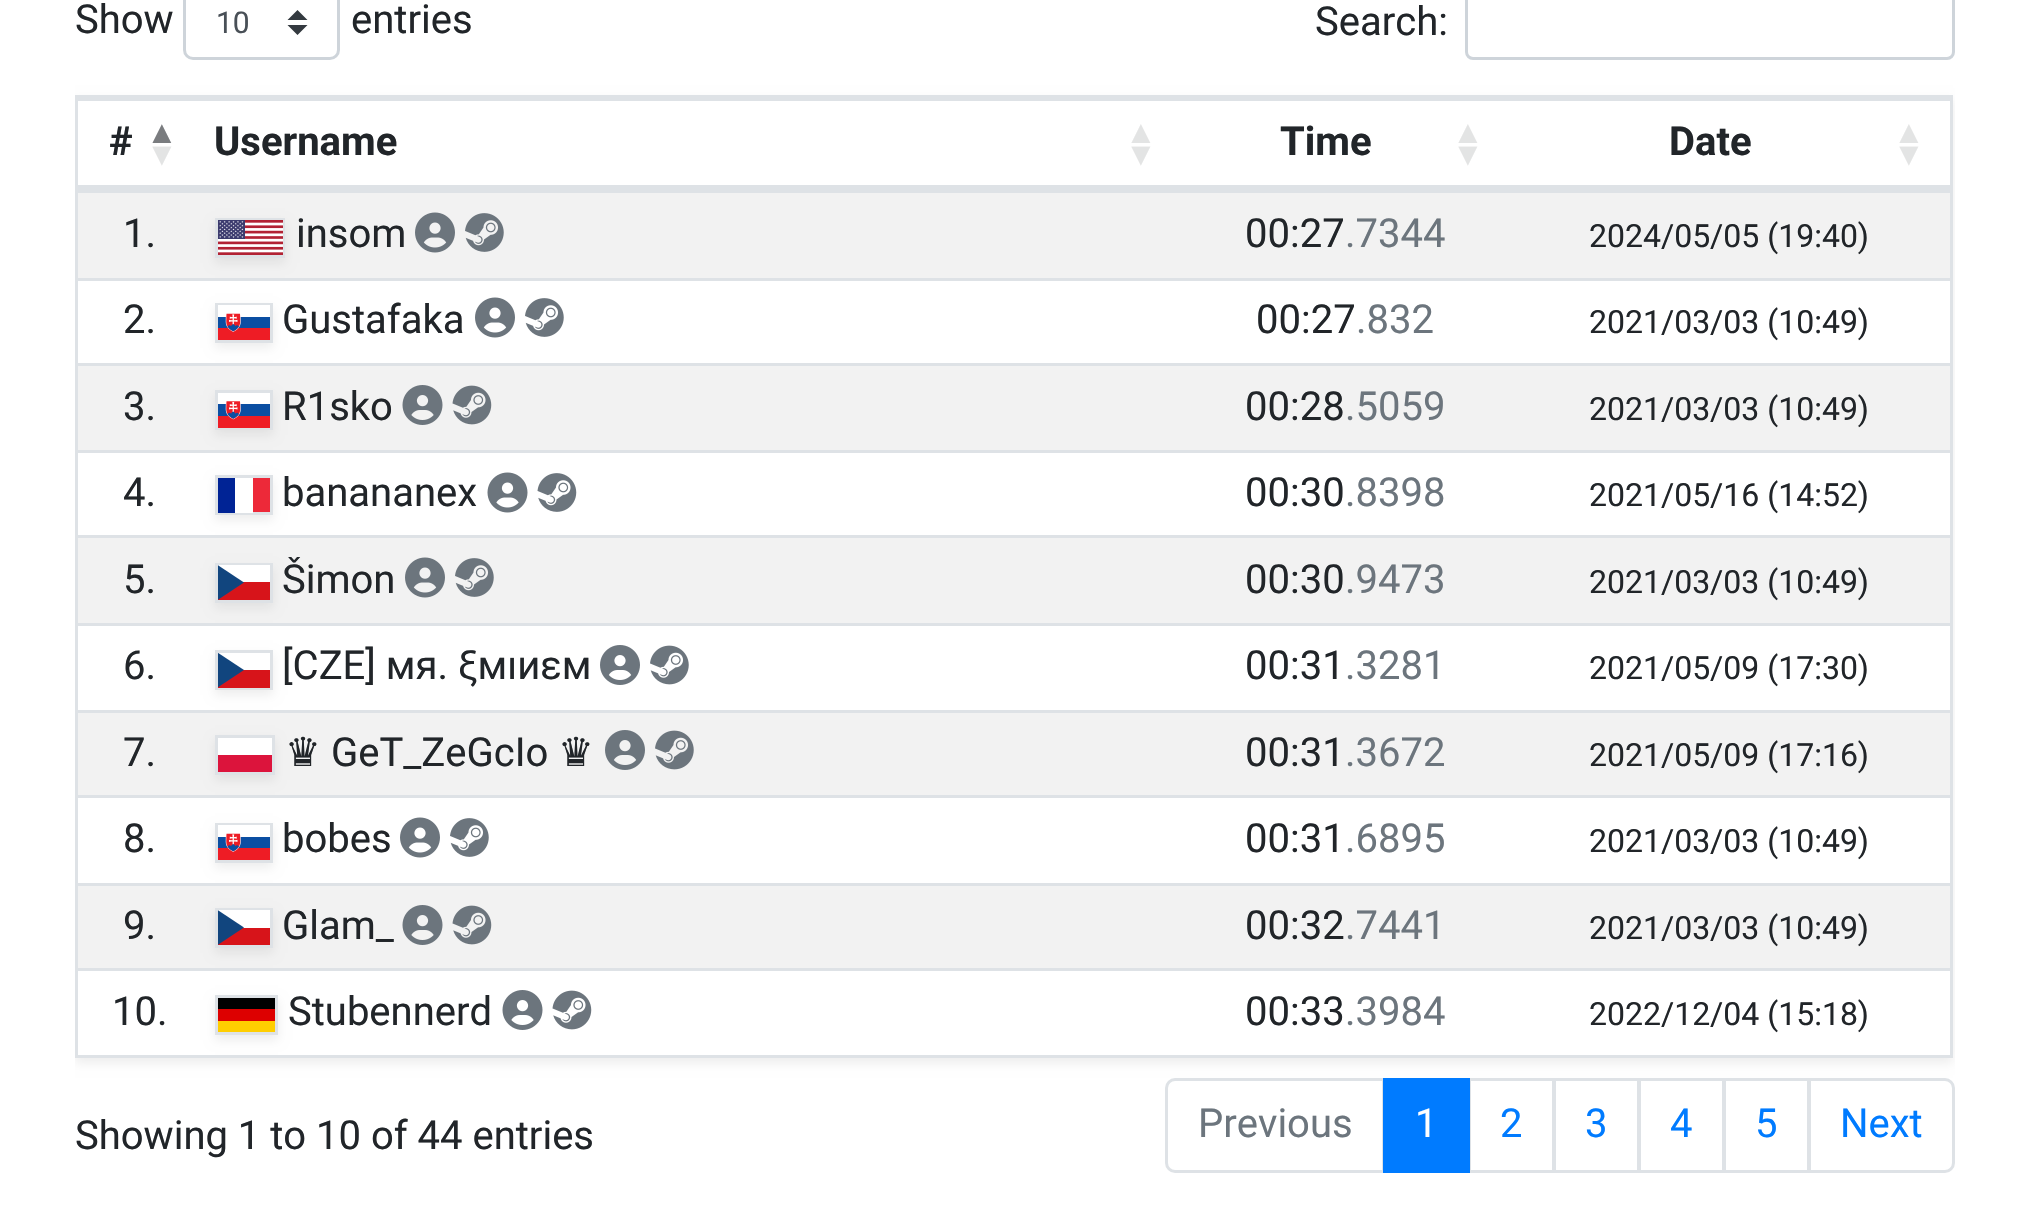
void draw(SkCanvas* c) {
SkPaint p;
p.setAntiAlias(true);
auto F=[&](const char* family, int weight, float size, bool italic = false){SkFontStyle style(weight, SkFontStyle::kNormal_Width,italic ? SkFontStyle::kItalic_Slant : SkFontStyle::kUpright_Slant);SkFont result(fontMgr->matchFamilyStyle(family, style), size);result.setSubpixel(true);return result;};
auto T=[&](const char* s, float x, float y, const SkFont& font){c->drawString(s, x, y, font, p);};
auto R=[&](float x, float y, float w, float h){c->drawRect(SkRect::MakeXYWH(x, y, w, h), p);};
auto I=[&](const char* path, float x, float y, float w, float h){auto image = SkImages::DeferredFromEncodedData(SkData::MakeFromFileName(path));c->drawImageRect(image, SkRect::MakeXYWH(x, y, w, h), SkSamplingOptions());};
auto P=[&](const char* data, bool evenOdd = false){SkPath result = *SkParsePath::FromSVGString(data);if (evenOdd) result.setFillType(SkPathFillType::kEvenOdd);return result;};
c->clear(0xffffffff);
auto f1 = F("Roboto",400,40);
p.setColor(0xff212529);
T("Show",75,33,f1);
p.setColor(0xff343a40);
c->drawPath(P("M297.5 10l-10 10h20zm0 25l-10-10h20z"),p);
p.setStroke(true);
p.setStrokeWidth(3);
p.setColor(0xffced4da);
c->drawRoundRect(SkRect::MakeXYWH(184.5,-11.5,154,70),8.5,8.5,p);
auto f2 = F("Roboto",400,30);
p.setStroke(false);
p.setColor(0xff495057);
T("10",216,33,f2);
p.setColor(0xff212529);
T("entries",351,33,f1);
T("Search:",1315,35,f1);
p.setStroke(true);
p.setColor(0xffced4da);
c->drawRoundRect(SkRect::MakeXYWH(1466.5,-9.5,487,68),6.5,6.5,p);
c->save();
c->clipRect(SkRect::MakeXYWH(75,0,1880,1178));
c->clipPath(P("M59 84h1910v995h-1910zm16 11h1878v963h-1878z",true),true);
p.setStroke(false);
p.setColor(0x12000000);
p.setMaskFilter(SkMaskFilter::MakeBlur(kNormal_SkBlurStyle, 5));
c->drawRect(SkRect::MakeXYWH(75,100,1878,963),p);
p.setMaskFilter(nullptr);
c->restore();
p.setStroke(true);
p.setColor(0xffdee2e6);
c->drawRect(SkRect::MakeXYWH(76.5,96.5,1875,960),p);
p.setStroke(false);
R(78,98,1872,3);
R(78,185,1872,5);
auto f3 = F("Roboto",700,40);
p.setColor(0xff212529);
T("#",109,155,f3);
auto f4 = F("Liberation Sans",700,32);
p.setColor(0xff7a7c7f);
T("▲",146,143,f4);
p.setColor(0xffe3e4e4);
T("▼",146,165,f4);
p.setColor(0xff212529);
T("Username",214,155,f3);
p.setColor(0xffe3e4e4);
T("▲",1125,143,f4);
T("▼",1125,165,f4);
p.setColor(0xff212529);
T("Time",1280,155,f3);
p.setColor(0xffe3e4e4);
T("▲",1452,143,f4);
T("▼",1452,165,f4);
p.setColor(0xff212529);
T("Date",1669,155,f3);
p.setColor(0xffe3e4e4);
T("▲",1893,143,f4);
T("▼",1893,165,f4);
p.setColor(0xfff2f2f2);
R(78,193,1872,85);
p.setColor(0xffdee2e6);
R(78,190,1872,3);
p.setColor(0xff212529);
T("1.",123,247,f1);
p.setColor(0xffdee2e6);
R(78,278,1872,3);
p.setColor(0x12000000);
p.setMaskFilter(SkMaskFilter::MakeBlur(kNormal_SkBlurStyle, 5));
c->drawRect(SkRect::MakeXYWH(215,223,70,40),p);
p.setMaskFilter(nullptr);
I("1.png",415,212,40,41);
I("2.png",465,213,39,39);
p.setStroke(true);
p.setColor(0xffdee2e6);
c->drawRect(SkRect::MakeXYWH(216.5,219.5,67,37),p);
p.setStroke(false);
p.setColor(0xff212529);
T("insom",296,247,f1);
I("3.png",218,220,65,35);
T("00:27",1245,247,f1);
p.setColor(0xff6c757d);
T(".7344",1345,247,f1);
auto f5 = F("Roboto",400,32);
p.setColor(0xff212529);
T("2024/05/05 (19:40)",1589,247,f5);
T("2.",123,333,f1);
p.setColor(0xffdee2e6);
R(78,363,1872,3);
p.setColor(0x12000000);
p.setMaskFilter(SkMaskFilter::MakeBlur(kNormal_SkBlurStyle, 5));
c->drawRect(SkRect::MakeXYWH(215,308,58,40),p);
p.setMaskFilter(nullptr);
p.setColor(0xff212529);
T("Gustafaka",282,333,f1);
I("4.png",475,297,40,41);
I("5.png",525,298,39,39);
p.setStroke(true);
p.setColor(0xffdee2e6);
c->drawRect(SkRect::MakeXYWH(216.5,304.5,55,37),p);
I("6.png",218,305,52,35);
p.setStroke(false);
p.setColor(0xff212529);
T("00:27",1256,333,f1);
p.setColor(0xff6c757d);
T(".832",1356,333,f1);
p.setColor(0xff212529);
T("2021/03/03 (10:49)",1589,333,f5);
p.setColor(0xfff2f2f2);
R(78,366,1872,84);
p.setColor(0xff212529);
T("3.",123,420,f1);
p.setColor(0xffdee2e6);
R(78,450,1872,3);
p.setColor(0x12000000);
p.setMaskFilter(SkMaskFilter::MakeBlur(kNormal_SkBlurStyle, 5));
c->drawRect(SkRect::MakeXYWH(215,395,58,40),p);
p.setMaskFilter(nullptr);
I("7.png",402,385,41,40);
I("8.png",452,385,40,40);
p.setStroke(true);
p.setColor(0xffdee2e6);
c->drawRect(SkRect::MakeXYWH(216.5,391.5,55,37),p);
p.setStroke(false);
p.setColor(0xff212529);
T("R1sko",282,420,f1);
I("9.png",218,393,52,35);
T("00:28",1245,420,f1);
p.setColor(0xff6c757d);
T(".5059",1345,420,f1);
p.setColor(0xff212529);
T("2021/03/03 (10:49)",1589,420,f5);
T("4.",123,506,f1);
p.setColor(0xffdee2e6);
R(78,535,1872,3);
p.setColor(0x12000000);
p.setMaskFilter(SkMaskFilter::MakeBlur(kNormal_SkBlurStyle, 5));
c->drawRect(SkRect::MakeXYWH(215,480,58,40),p);
p.setMaskFilter(nullptr);
I("10.png",487,472,41,41);
I("11.png",537,473,40,39);
p.setStroke(true);
p.setColor(0xffdee2e6);
c->drawRect(SkRect::MakeXYWH(216.5,476.5,55,37),p);
p.setStroke(false);
p.setColor(0xff212529);
T("banananex",282,506,f1);
p.setColor(0xff002395);
R(218,478,17,35);
p.setColor(0xffffffff);
R(235,478,18,35);
p.setColor(0xffed2939);
R(253,478,17,34);
p.setColor(0xff212529);
T("00:30",1245,506,f1);
p.setColor(0xff6c757d);
T(".8398",1345,506,f1);
p.setColor(0xff212529);
T("2021/05/16 (14:52)",1589,506,f5);
p.setColor(0xfff2f2f2);
R(78,538,1872,85);
p.setColor(0xff212529);
T("5.",123,593,f1);
p.setColor(0xffdee2e6);
R(78,623,1872,3);
p.setColor(0x12000000);
p.setMaskFilter(SkMaskFilter::MakeBlur(kNormal_SkBlurStyle, 5));
c->drawRect(SkRect::MakeXYWH(215,568,58,40),p);
p.setMaskFilter(nullptr);
p.setColor(0xff212529);
T("Šimon",282,593,f1);
I("1.png",405,557,40,41);
I("2.png",455,558,39,39);
p.setStroke(true);
p.setColor(0xffdee2e6);
c->drawRect(SkRect::MakeXYWH(216.5,564.5,55,37),p);
p.setStroke(false);
p.setColor(0xffffffff);
R(218,565,52,17);
p.setColor(0xffd7141a);
R(218,582,52,18);
c->save();
c->clipRect(SkRect::MakeXYWH(218,565,52,35));
p.setColor(0xff11457e);
c->drawPath(P("M244 582.5l-26.5-17.5v35z"),p);
c->restore();
p.setColor(0xff212529);
T("00:30",1245,593,f1);
p.setColor(0xff6c757d);
T(".9473",1345,593,f1);
p.setColor(0xff212529);
T("2021/03/03 (10:49)",1589,593,f5);
T("6.",123,679,f1);
p.setColor(0xffdee2e6);
R(78,710,1872,3);
p.setColor(0x12000000);
p.setMaskFilter(SkMaskFilter::MakeBlur(kNormal_SkBlurStyle, 5));
c->drawRect(SkRect::MakeXYWH(215,655,58,40),p);
p.setMaskFilter(nullptr);
p.setColor(0xff212529);
T("[CZE] мя. ξмıиεм",282,679,f1);
I("12.png",600,645,40,40);
I("13.png",650,645,39,40);
p.setStroke(true);
p.setColor(0xffdee2e6);
c->drawRect(SkRect::MakeXYWH(216.5,651.5,55,37),p);
p.setStroke(false);
p.setColor(0xffffffff);
R(218,653,52,17);
p.setColor(0xffd7141a);
R(218,670,52,18);
c->save();
c->clipRect(SkRect::MakeXYWH(218,653,52,35));
p.setColor(0xff11457e);
c->drawPath(P("M244 670l-26.5-17.5v35z"),p);
c->restore();
p.setColor(0xff212529);
T("00:31",1245,679,f1);
p.setColor(0xff6c757d);
T(".3281",1345,679,f1);
p.setColor(0xff212529);
T("2021/05/09 (17:30)",1589,679,f5);
p.setColor(0xfff2f2f2);
R(78,713,1872,82);
p.setColor(0xff212529);
T("7.",123,766,f1);
p.setColor(0xffdee2e6);
R(78,795,1872,3);
p.setColor(0x12000000);
p.setMaskFilter(SkMaskFilter::MakeBlur(kNormal_SkBlurStyle, 5));
c->drawRect(SkRect::MakeXYWH(215,740,60,40),p);
p.setMaskFilter(nullptr);
I("14.png",605,730,40,40);
I("15.png",655,730,39,40);
p.setStroke(true);
p.setColor(0xffdee2e6);
c->drawRect(SkRect::MakeXYWH(216.5,736.5,57,37),p);
auto f6 = F("DejaVu Sans",400,40);
p.setStroke(false);
p.setColor(0xff212529);
T("♛",285,766,f6);
T("GeT_ZeGcIo",331,766,f1);
T("♛",558,766,f6);
p.setColor(0xffffffff);
R(218,738,54,17);
p.setColor(0xffdc143c);
R(218,755,54,17);
p.setColor(0xff212529);
T("00:31",1245,766,f1);
p.setColor(0xff6c757d);
T(".3672",1345,766,f1);
p.setColor(0xff212529);
T("2021/05/09 (17:16)",1589,766,f5);
T("8.",123,852,f1);
p.setColor(0xffdee2e6);
R(78,883,1872,3);
p.setColor(0x12000000);
p.setMaskFilter(SkMaskFilter::MakeBlur(kNormal_SkBlurStyle, 5));
c->drawRect(SkRect::MakeXYWH(215,828,58,40),p);
p.setMaskFilter(nullptr);
p.setColor(0xff212529);
T("bobes",282,852,f1);
I("4.png",400,817,40,41);
I("5.png",450,818,39,39);
p.setStroke(true);
p.setColor(0xffdee2e6);
c->drawRect(SkRect::MakeXYWH(216.5,824.5,55,37),p);
I("6.png",218,825,52,35);
p.setStroke(false);
p.setColor(0xff212529);
T("00:31",1245,852,f1);
p.setColor(0xff6c757d);
T(".6895",1345,852,f1);
p.setColor(0xff212529);
T("2021/03/03 (10:49)",1589,852,f5);
p.setColor(0xfff2f2f2);
R(78,886,1872,82);
p.setColor(0xff212529);
T("9.",123,939,f1);
p.setColor(0xffdee2e6);
R(78,968,1872,3);
p.setColor(0x12000000);
p.setMaskFilter(SkMaskFilter::MakeBlur(kNormal_SkBlurStyle, 5));
c->drawRect(SkRect::MakeXYWH(215,913,58,40),p);
p.setMaskFilter(nullptr);
I("7.png",402,905,41,40);
I("8.png",452,905,40,40);
p.setStroke(true);
p.setColor(0xffdee2e6);
c->drawRect(SkRect::MakeXYWH(216.5,909.5,55,37),p);
p.setStroke(false);
p.setColor(0xff212529);
T("Glam_",282,939,f1);
p.setColor(0xffffffff);
R(218,910,52,18);
p.setColor(0xffd7141a);
R(218,928,52,17);
c->save();
c->clipRect(SkRect::MakeXYWH(218,910,52,35));
p.setColor(0xff11457e);
c->drawPath(P("M244 927.5l-26.5-17.5v35z"),p);
c->restore();
p.setColor(0xff212529);
T("00:32",1245,939,f1);
p.setColor(0xff6c757d);
T(".7441",1345,939,f1);
p.setColor(0xff212529);
T("2021/03/03 (10:49)",1589,939,f5);
T("10.",112,1025,f1);
p.setColor(0x12000000);
p.setMaskFilter(SkMaskFilter::MakeBlur(kNormal_SkBlurStyle, 5));
c->drawRect(SkRect::MakeXYWH(215,1000,63,40),p);
p.setMaskFilter(nullptr);
I("16.png",502,990,41,40);
I("17.png",552,990,40,40);
p.setStroke(true);
p.setColor(0xffdee2e6);
c->drawRect(SkRect::MakeXYWH(216.5,996.5,60,37),p);
p.setStroke(false);
p.setColor(0xff212529);
T("Stubennerd",288,1025,f1);
p.setColor(0xff000000);
R(218,998,57,11);
p.setColor(0xffdd0000);
R(218,1009,57,12);
p.setColor(0xffffce00);
R(218,1021,57,11);
p.setColor(0xff212529);
T("00:33",1245,1025,f1);
p.setColor(0xff6c757d);
T(".3984",1345,1025,f1);
p.setColor(0xff212529);
T("2022/12/04 (15:18)",1589,1025,f5);
T("Showing 1 to 10 of 44 entries",75,1149,f1);
p.setStroke(true);
p.setColor(0xffdee2e6);
c->drawPath(P("M1175 1079.5h208.5v92h-208.5c-4.5 0-8.5-4-8.5-8.5v-75c0-4.5 4-8.5 8.5-8.5z"),p);
p.setStroke(false);
p.setColor(0xff6c757d);
T("Previous",1198,1137,f1);
p.setStroke(true);
p.setColor(0xffdee2e6);
c->drawRect(SkRect::MakeXYWH(1469.5,1079.5,84,92),p);
p.setStroke(false);
p.setColor(0xff007bff);
R(1383,1078,87,95);
p.setColor(0xffffffff);
T("1",1415,1137,f1);
p.setColor(0xff007bff);
T("2",1500,1137,f1);
p.setStroke(true);
p.setColor(0xffdee2e6);
c->drawRect(SkRect::MakeXYWH(1554.5,1079.5,84,92),p);
p.setStroke(false);
p.setColor(0xff007bff);
T("3",1585,1137,f1);
p.setStroke(true);
p.setColor(0xffdee2e6);
c->drawRect(SkRect::MakeXYWH(1639.5,1079.5,84,92),p);
p.setStroke(false);
p.setColor(0xff007bff);
T("4",1670,1137,f1);
p.setStroke(true);
p.setColor(0xffdee2e6);
c->drawRect(SkRect::MakeXYWH(1724.5,1079.5,84,92),p);
p.setStroke(false);
p.setColor(0xff007bff);
T("5",1755,1137,f1);
p.setColor(0xffffffff);
c->drawPath(P("M1809.5 1079.5h135.5c4.5 0 8.5 4 8.5 8.5v75c0 4.5-4 8.5-8.5 8.5h-135.5z"),p);
p.setStroke(true);
p.setColor(0xffdee2e6);
c->drawPath(P("M1809.5 1079.5h135.5c4.5 0 8.5 4 8.5 8.5v75c0 4.5-4 8.5-8.5 8.5h-135.5z"),p);
p.setStroke(false);
p.setColor(0xff007bff);
T("Next",1840,1137,f1);
}
